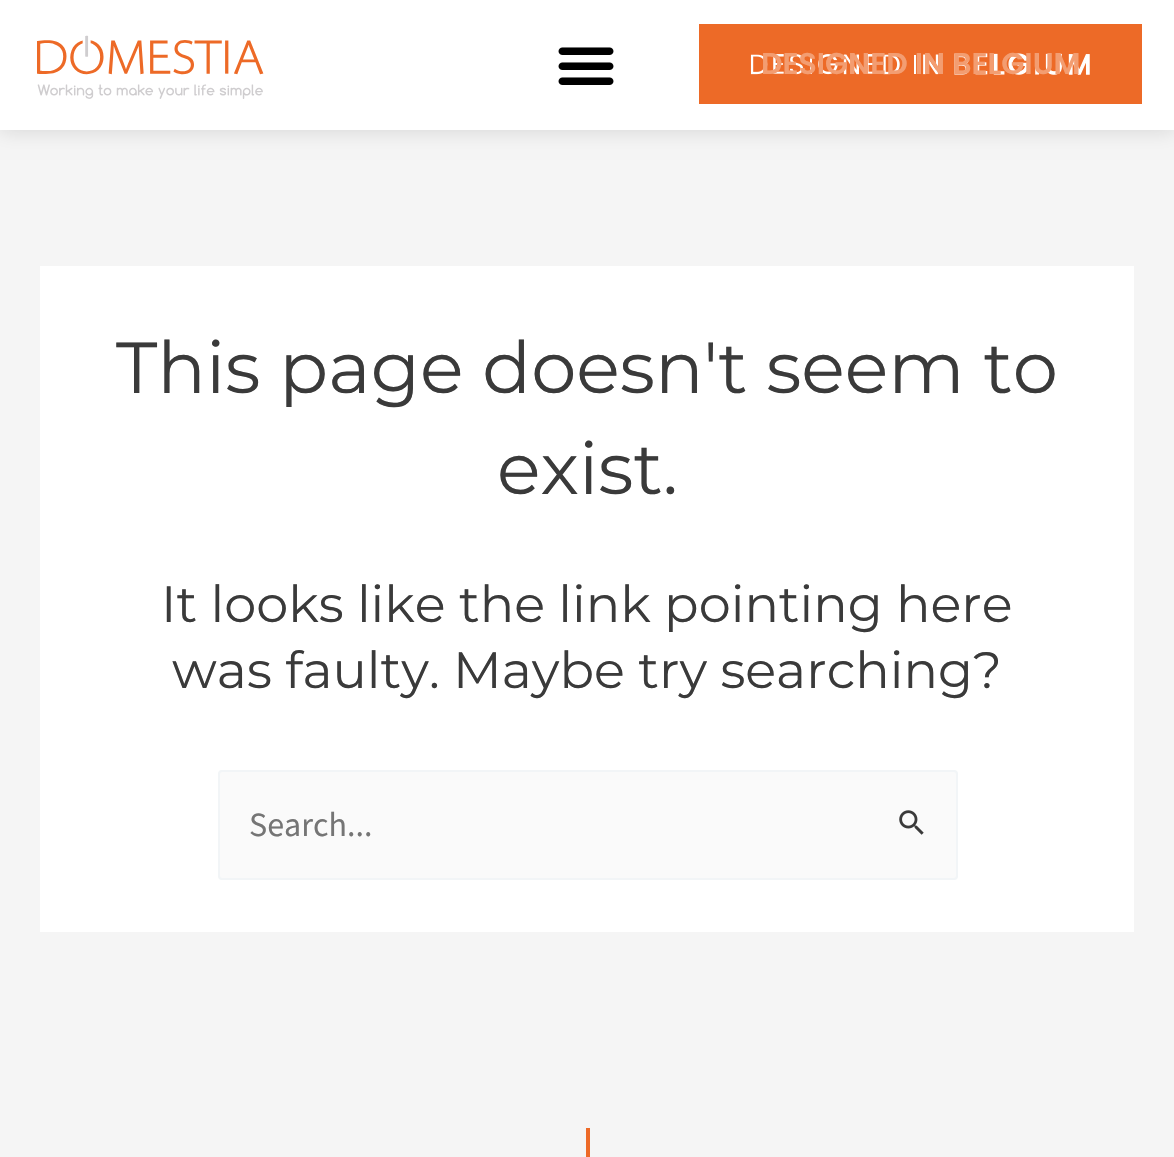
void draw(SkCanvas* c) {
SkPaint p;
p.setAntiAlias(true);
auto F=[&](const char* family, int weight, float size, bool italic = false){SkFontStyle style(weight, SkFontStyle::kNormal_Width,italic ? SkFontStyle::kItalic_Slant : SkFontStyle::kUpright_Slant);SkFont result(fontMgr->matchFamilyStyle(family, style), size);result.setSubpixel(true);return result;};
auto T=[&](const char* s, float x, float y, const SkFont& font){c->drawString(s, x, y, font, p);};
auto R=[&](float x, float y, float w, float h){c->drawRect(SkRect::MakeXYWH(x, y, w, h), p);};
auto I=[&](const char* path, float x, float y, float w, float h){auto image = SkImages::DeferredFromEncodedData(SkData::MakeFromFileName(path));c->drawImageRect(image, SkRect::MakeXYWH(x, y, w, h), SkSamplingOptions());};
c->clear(0xfff5f5f5);
p.setColor(0x24000000);
p.setMaskFilter(SkMaskFilter::MakeBlur(kNormal_SkBlurStyle, 10));
c->drawRect(SkRect::MakeXYWH(0,0,1174,130),p);
p.setMaskFilter(nullptr);
p.setColor(0xffffffff);
R(0,0,1174,130);
I("1.png",37,35,227,64);
I("2.png",558,47,56,38);
I("3.png",699,24,443,80);
auto f1 = F("Poppins",600,30);
p.setColor(0xfff39d71);
T("DESIGNED IN BELGIUM",761,74,f1);
p.setColor(0xffffffff);
R(40,266,1094,666);
auto f2 = F("Montserrat",400,72);
p.setColor(0xff3a3a3a);
T("This page doesn't seem to",116,393,f2);
T("exist.",497,494,f2);
auto f3 = F("Montserrat",400,51);
T("It looks like the link pointing here",161,622,f3);
T("was faulty. Maybe try searching?",172,688,f3);
p.setColor(0xfffafafa);
c->drawRoundRect(SkRect::MakeXYWH(219,771,738,108),3,3,p);
p.setStroke(true);
p.setStrokeWidth(2);
p.setColor(0xfff2f5f7);
c->drawRoundRect(SkRect::MakeXYWH(219,771,738,108),3,3,p);
auto f4 = F("Source Sans Pro",400,34);
p.setStroke(false);
p.setColor(0xff757575);
T("Search...",249,836,f4);
I("4.png",899,810,25,25);
I("5.png",0,1068,1174,89);
p.setColor(0xffed6a27);
R(586,1128,4,29);
}
